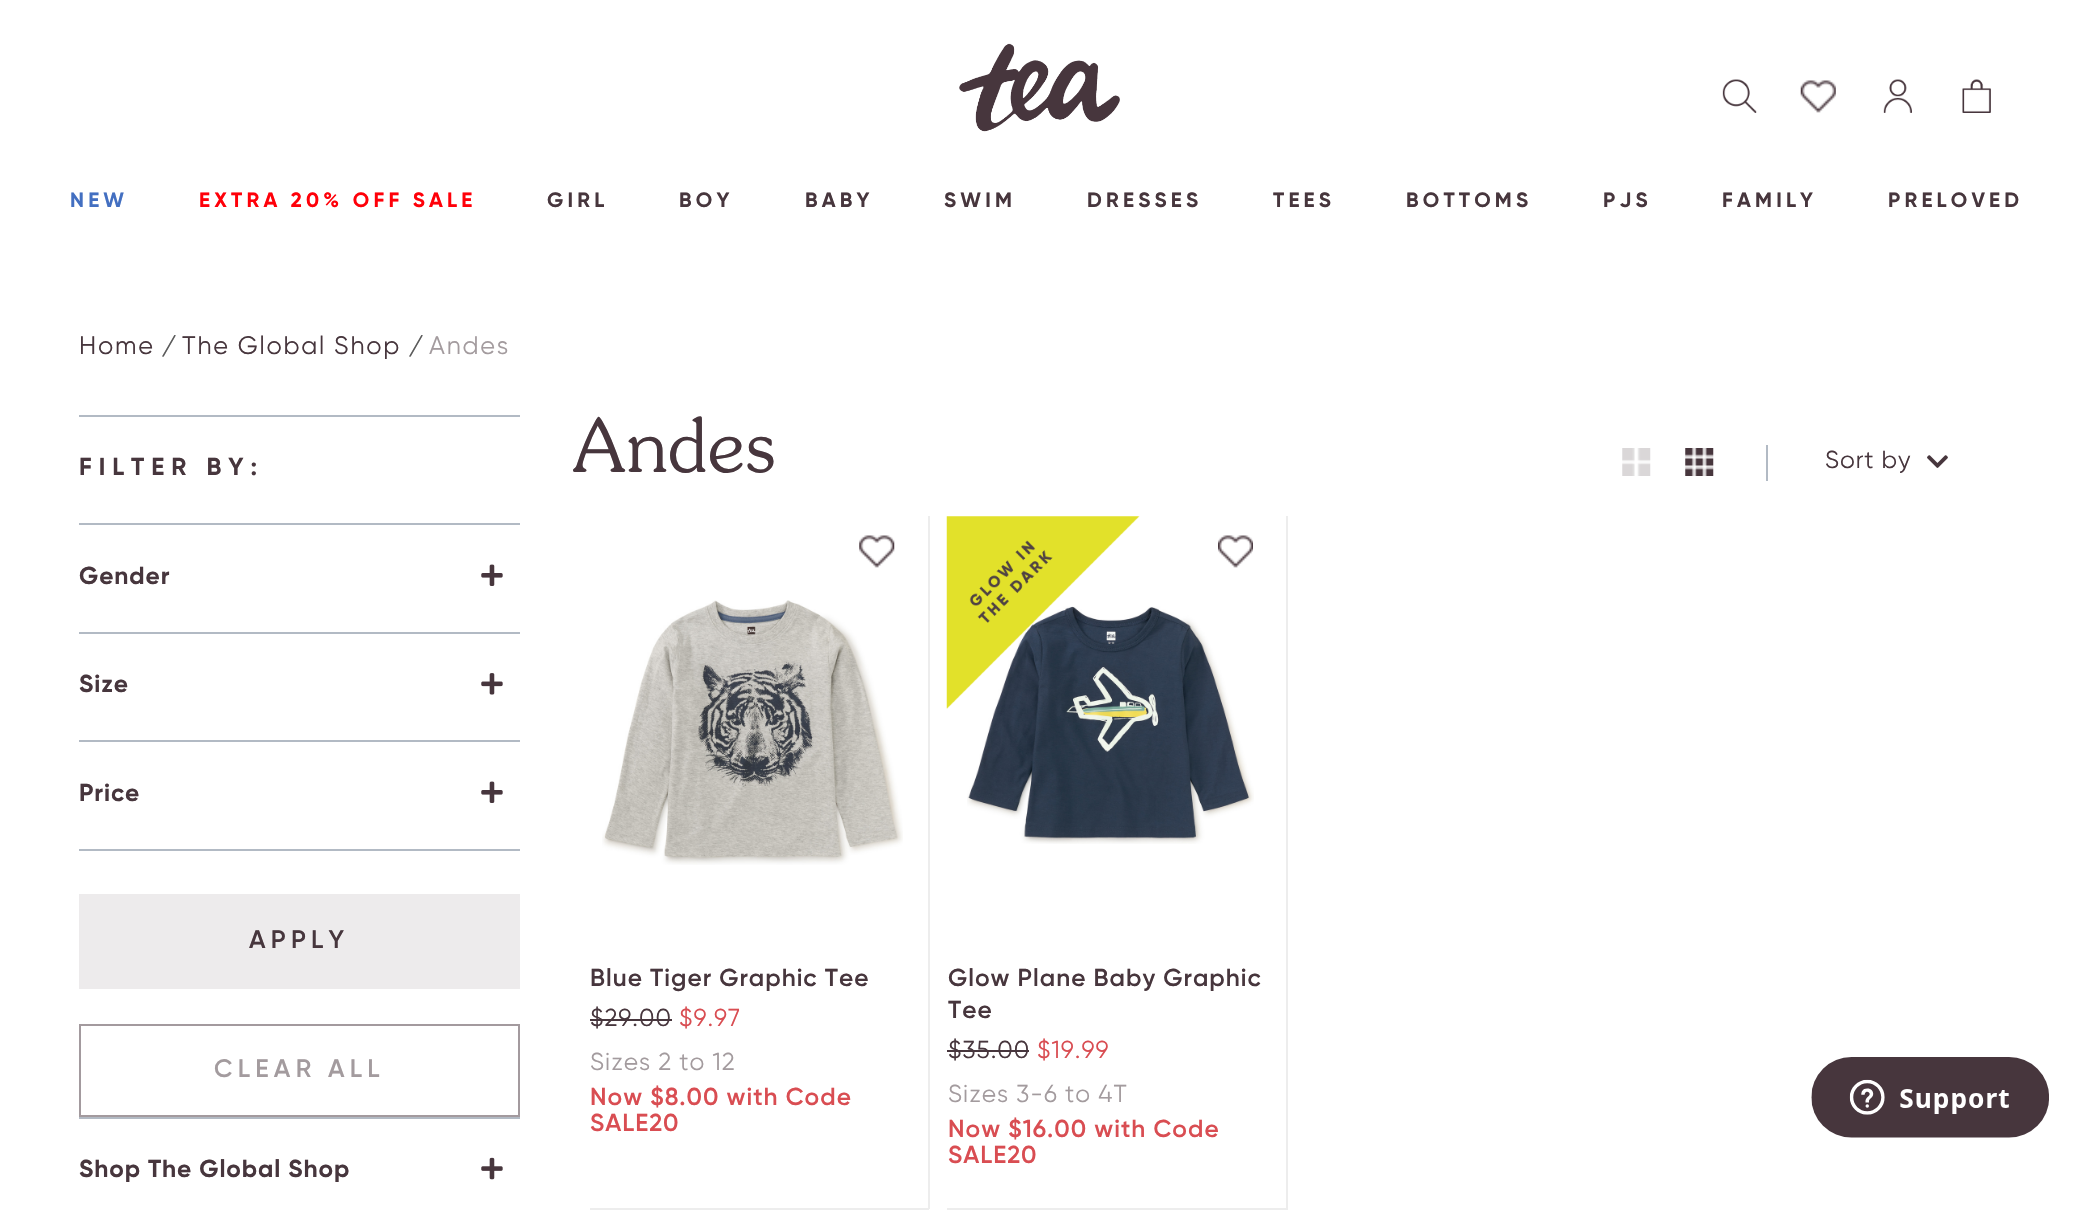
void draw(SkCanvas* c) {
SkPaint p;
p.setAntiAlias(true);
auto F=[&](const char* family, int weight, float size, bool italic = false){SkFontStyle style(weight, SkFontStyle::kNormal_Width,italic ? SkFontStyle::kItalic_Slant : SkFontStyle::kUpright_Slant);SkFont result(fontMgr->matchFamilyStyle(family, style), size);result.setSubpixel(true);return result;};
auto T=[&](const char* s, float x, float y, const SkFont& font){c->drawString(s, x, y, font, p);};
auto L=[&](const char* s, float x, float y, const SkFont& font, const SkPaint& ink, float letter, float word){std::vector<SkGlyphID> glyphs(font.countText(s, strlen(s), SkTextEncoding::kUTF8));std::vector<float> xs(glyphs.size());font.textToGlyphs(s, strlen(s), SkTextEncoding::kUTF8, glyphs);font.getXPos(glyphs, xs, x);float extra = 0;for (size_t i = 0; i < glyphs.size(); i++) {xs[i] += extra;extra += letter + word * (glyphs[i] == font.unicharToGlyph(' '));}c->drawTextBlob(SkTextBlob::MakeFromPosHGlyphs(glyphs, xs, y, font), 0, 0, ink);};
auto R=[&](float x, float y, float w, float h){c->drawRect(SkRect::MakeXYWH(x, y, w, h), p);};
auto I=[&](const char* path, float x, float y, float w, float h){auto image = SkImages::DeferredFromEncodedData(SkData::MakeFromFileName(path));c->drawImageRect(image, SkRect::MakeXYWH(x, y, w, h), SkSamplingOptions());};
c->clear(0xffffffff);
I("1.png",959,43,161,89);
I("2.png",1722,79,35,34);
I("3.png",1800,80,36,33);
I("4.png",1883,79,29,34);
I("5.png",1962,79,29,34);
auto f1 = F("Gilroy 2",400,20.75);
p.setColor(0xff436fc1);
L("NEW",70,207,f1,p,4.2,0);
p.setColor(0xffff0009);
L("EXTRA 20% OFF SALE",199,207,f1,p,4.2,0);
p.setColor(0xff47363d);
L("GIRL",547,207,f1,p,4.2,0);
L("BOY",679,207,f1,p,4.2,0);
L("BABY",805,207,f1,p,4.2,0);
L("SWIM",944,207,f1,p,4.2,0);
L("DRESSES",1087,207,f1,p,4.2,0);
L("TEES",1273,207,f1,p,4.2,0);
L("BOTTOMS",1406,207,f1,p,4.2,0);
L("PJS",1603,207,f1,p,4.2,0);
L("FAMILY",1722,207,f1,p,4.2,0);
L("PRELOVED",1888,207,f1,p,4.2,0);
auto f2 = F("Gilroy",400,25.25);
L("Home",79,354,f2,p,1.75,0);
auto f3 = F("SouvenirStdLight",400,25.25);
p.setColor(0xff5b5b5b);
T("/",162,354,f3);
p.setColor(0xff47363d);
L("The Global Shop",182,354,f2,p,1.75,0);
p.setColor(0xff5b5b5b);
T("/",409,354,f3);
p.setColor(0xffa39b9e);
L("Andes",429,354,f2,p,1.75,0);
p.setColor(0xffb2bac4);
R(79,415,441,2);
auto f4 = F("Gilroy 2",400,24.5);
p.setColor(0xff47363d);
L("FILTER BY:",79,475,f4,p,7,0);
p.setColor(0xffb2bac4);
R(79,523,441,2);
p.setColor(0xff47363d);
L("Gender",79,584,f4,p,.9,0);
I("6.png",481,564,22,22);
p.setColor(0xffb2bac4);
R(79,632,441,2);
p.setColor(0xff47363d);
L("Size",79,692,f4,p,.9,0);
I("7.png",481,673,22,22);
p.setColor(0xffb2bac4);
R(79,849,441,2);
R(79,740,441,2);
p.setColor(0xff47363d);
L("Price",79,801,f4,p,.9,0);
I("6.png",481,781,22,22);
p.setColor(0xffedebec);
R(79,894,441,95);
auto f5 = F("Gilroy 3",400,25.25);
p.setColor(0xff47363d);
L("APPLY",249,948,f5,p,5.25,0);
p.setStroke(true);
p.setStrokeWidth(2);
p.setColor(0xffa39a9e);
c->drawRect(SkRect::MakeXYWH(80,1025,439,91),p);
p.setStroke(false);
p.setColor(0xffa39b9e);
L("CLEAR ALL",214,1077,f5,p,5.25,0);
p.setColor(0xffb2bac4);
R(79,1117,441,2);
p.setColor(0xff47363d);
L("Shop The Global Shop",79,1177,f4,p,.9,0);
I("8.png",481,1157,22,23);
auto f6 = F("SouvenirStdLight",400,73.5);
L("Andes",573,472,f6,p,.9,0);
I("9.png",1622,448,29,28);
I("10.png",1685,448,29,28);
p.setColor(0xffb2bac4);
R(1766,445,2,36);
auto f7 = F("Gilroy",400,24.5);
p.setColor(0xff47363d);
L("Sort by",1825,468,f7,p,.9,0);
I("11.png",1927,455,21,13);
I("12.png",859,535,36,33);
I("13.png",602,600,301,265);
p.setColor(0xffededed);
R(590,1208,339,2);
R(928,516,2,693);
auto f8 = F("Gilroy 3",400,24.5);
p.setColor(0xff47363d);
L("Blue Tiger Graphic Tee",590,986,f8,p,1,0);
L("$29.00",590,1026,f7,p,1,0);
R(590,1019,82,2);
p.setColor(0xffd94d52);
L("$9.97",679,1026,f7,p,1,0);
p.setColor(0xffa39b9e);
L("Sizes 2 to 12",590,1070,f7,p,1,0);
p.setColor(0xffd94d52);
L("Now $8.00 with Code",590,1105,f8,p,1,0);
L("SALE20",590,1131,f8,p,1,0);
I("16.png",967,606,287,238);
I("14.png",946,516,194,193);
I("15.png",1218,535,35,33);
p.setColor(0xffededed);
R(947,1208,341,2);
R(1286,516,2,693);
p.setColor(0xff47363d);
L("Glow Plane Baby Graphic",948,986,f8,p,1,0);
L("Tee",948,1018,f8,p,1,0);
L("$35.00",948,1058,f7,p,1,0);
R(947,1050,82,2);
p.setColor(0xffd94d52);
L("$19.99",1037,1058,f7,p,1,0);
p.setColor(0xffa39b9e);
L("Sizes 3-6 to 4T",948,1102,f7,p,1,0);
p.setColor(0xffd94d52);
L("Now $16.00 with Code",948,1137,f8,p,1,0);
L("SALE20",948,1163,f8,p,1,0);
I("17.png",1811,1057,238,81);
}
